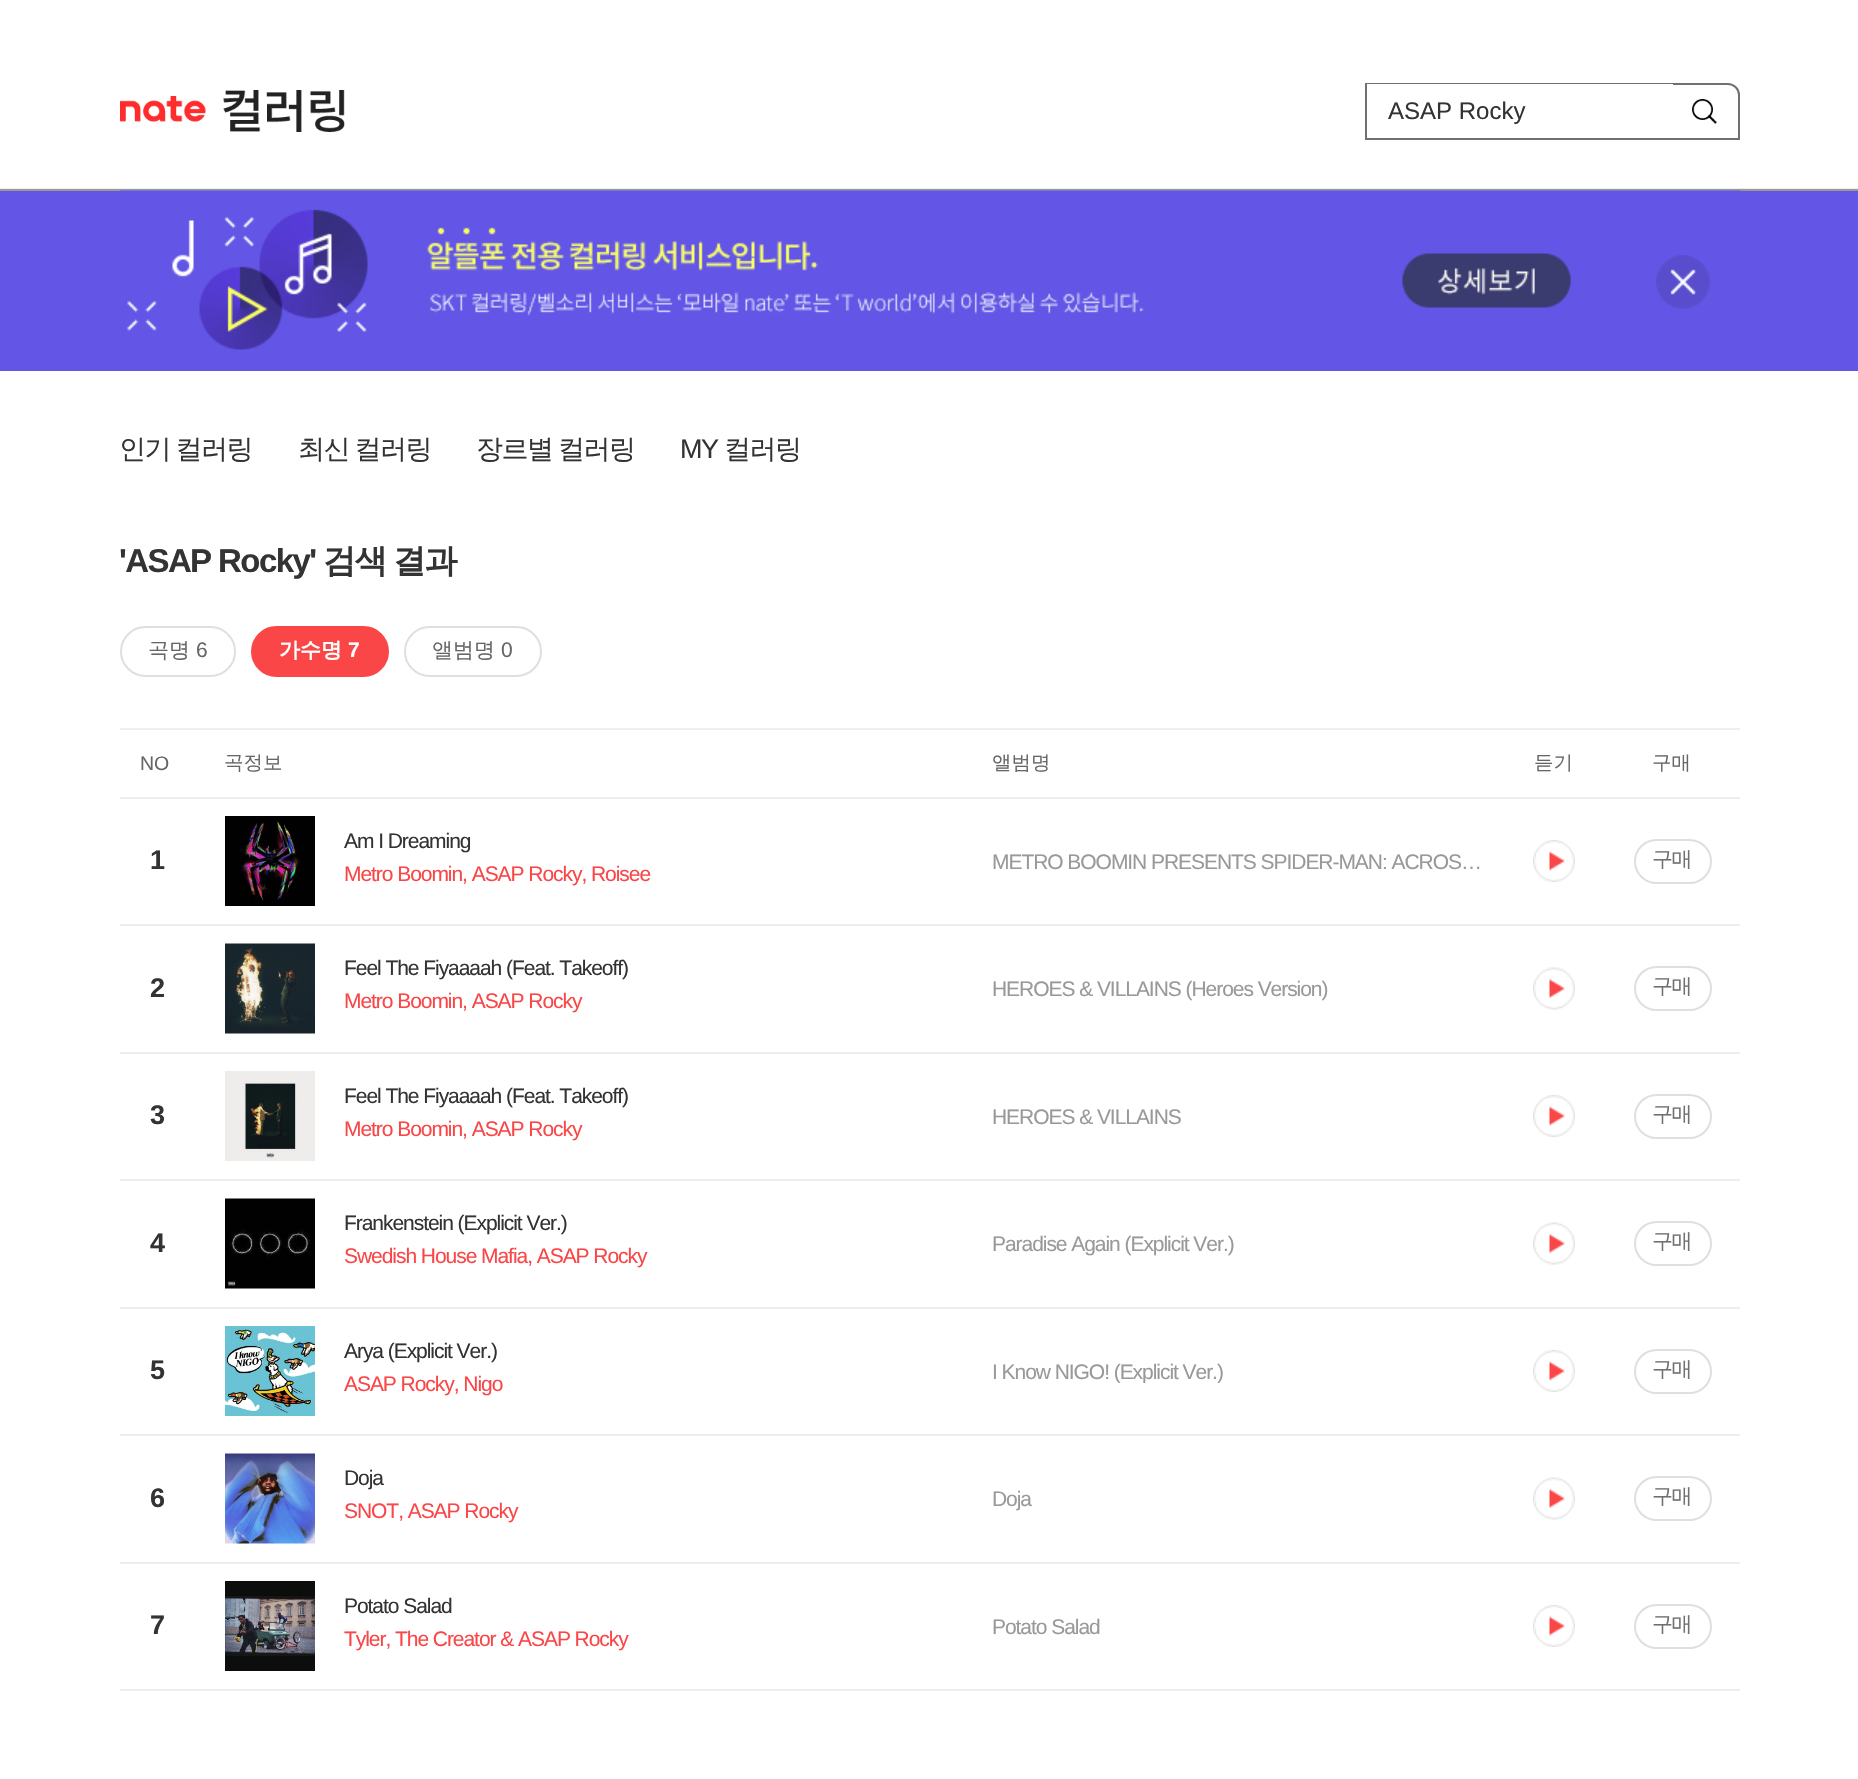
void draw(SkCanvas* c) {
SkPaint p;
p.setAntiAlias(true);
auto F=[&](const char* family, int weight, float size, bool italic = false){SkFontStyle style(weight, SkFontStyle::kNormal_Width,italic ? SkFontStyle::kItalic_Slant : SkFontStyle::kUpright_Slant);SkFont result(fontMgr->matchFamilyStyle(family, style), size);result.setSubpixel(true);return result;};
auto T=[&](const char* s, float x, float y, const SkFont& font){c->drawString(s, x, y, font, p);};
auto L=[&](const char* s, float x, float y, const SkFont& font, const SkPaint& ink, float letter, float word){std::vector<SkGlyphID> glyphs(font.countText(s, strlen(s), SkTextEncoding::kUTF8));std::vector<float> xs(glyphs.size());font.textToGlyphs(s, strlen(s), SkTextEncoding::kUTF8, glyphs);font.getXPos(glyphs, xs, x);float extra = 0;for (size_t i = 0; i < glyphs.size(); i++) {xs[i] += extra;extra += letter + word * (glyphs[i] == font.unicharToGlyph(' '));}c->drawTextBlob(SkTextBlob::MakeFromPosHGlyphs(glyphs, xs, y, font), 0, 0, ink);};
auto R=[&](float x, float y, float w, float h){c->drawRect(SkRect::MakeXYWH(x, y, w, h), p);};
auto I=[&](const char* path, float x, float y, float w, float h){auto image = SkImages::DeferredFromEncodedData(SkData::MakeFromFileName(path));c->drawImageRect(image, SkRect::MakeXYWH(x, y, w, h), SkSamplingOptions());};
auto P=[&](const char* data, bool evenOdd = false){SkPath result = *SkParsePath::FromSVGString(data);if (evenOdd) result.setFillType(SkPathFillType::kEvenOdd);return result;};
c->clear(0xffffffff);
p.setColor(0xffeeeeee);
R(0,188,1858,1);
I("1.png",120,96,86,26);
I("2.png",223,90,122,42);
p.setStroke(true);
p.setStrokeWidth(2);
p.setColor(0xff707070);
c->drawPath(P("M1366 84h362c6 0 11 5 11 11v44h-373z"),p);
p.setStroke(false);
p.setColor(0xffffffff);
R(1367,84,306,1);
auto f1 = F("Liberation Sans",400,24);
p.setColor(0xff333333);
T("ASAP Rocky",1388,119,f1);
I("3.png",1692,99,25,25);
p.setColor(0xff999999);
R(0,189,1858,2);
p.setColor(0xff6356e6);
R(0,191,1858,180);
I("4.png",120,190,1620,160);
I("5.png",1656,255,54,54);
auto f2 = F("WenQuanYi Zen Hei",500,27);
p.setColor(0xff333333);
L("인기 컬러링",119,458,f2,p,-1.5,-1);
L("최신 컬러링",298,458,f2,p,-1.5,-1);
L("장르별 컬러링",476,458,f2,p,-1.5,-1);
auto f3 = F("Liberation Sans",400,27);
L("MY",680,458,f3,p,-1.5,0);
L("컬러링",724,458,f2,p,-1.5,0);
auto f4 = F("Liberation Sans",700,33);
L("'ASAP Rocky'",119,572,f4,p,-1.6,0);
auto f5 = F("WenQuanYi Zen Hei",700,33);
L("검색",323,572,f5,p,-1.6,0);
L("결과",393,572,f5,p,-1.6,0);
p.setStroke(true);
p.setColor(0xffdfdfdf);
c->drawRoundRect(SkRect::MakeXYWH(121,627,114,49),24.5,24.5,p);
auto f6 = F("WenQuanYi Zen Hei",500,21);
p.setStroke(false);
p.setColor(0xff666666);
T("곡명",148,657,f6);
auto f7 = F("Liberation Sans",400,21);
T("6",196,657,f7);
p.setColor(0xfffa4647);
c->drawRoundRect(SkRect::MakeXYWH(252,627,136,49),24.5,24.5,p);
p.setStroke(true);
c->drawRoundRect(SkRect::MakeXYWH(252,627,136,49),24.5,24.5,p);
auto f8 = F("WenQuanYi Zen Hei",700,21);
p.setStroke(false);
p.setColor(0xffffffff);
T("가수명",279,657,f8);
auto f9 = F("Liberation Sans",700,21);
T("7",348,657,f9);
p.setStroke(true);
p.setColor(0xffdfdfdf);
c->drawRoundRect(SkRect::MakeXYWH(405,627,136,49),24.5,24.5,p);
p.setStroke(false);
p.setColor(0xff666666);
T("앨범명",432,657,f6);
T("0",501,657,f7);
p.setColor(0xffeeeeee);
R(120,728,1620,2);
R(120,797,1620,2);
auto f10 = F("Liberation Sans",400,19.5);
p.setColor(0xff666666);
T("NO",140,770,f10);
auto f11 = F("WenQuanYi Zen Hei",500,19.5);
T("곡정보",224,769,f11);
T("앨범명",992,769,f11);
T("듣기",1534,769,f11);
T("구매",1652,769,f11);
p.setColor(0xffededed);
R(120,924,1620,2);
auto f12 = F("Liberation Sans",700,27);
p.setColor(0xff333333);
L("1",150,869,f12,p,-1.5,0);
I("6.png",225,816,90,90);
L("Am I Dreaming",344,848,f7,p,-1.05,0);
p.setColor(0xfffa4647);
L("Metro Boomin, ASAP Rocky, Roisee",344,881,f7,p,-1.05,0);
p.setColor(0xff999999);
L("METRO BOOMIN PRESENTS SPIDER-MAN: ACROS…",992,869,f7,p,-1.05,0);
I("7.png",1533,840,42,42);
p.setStroke(true);
p.setColor(0xffdfdfdf);
c->drawRoundRect(SkRect::MakeXYWH(1635,840,76,43),21.5,21.5,p);
p.setStroke(false);
p.setColor(0xff707070);
L("구매",1652,866,f6,p,-1.5,0);
p.setColor(0xffededed);
R(120,1052,1620,2);
p.setColor(0xff333333);
L("2",150,997,f12,p,-1.5,0);
I("8.png",225,943,90,91);
L("Feel The Fiyaaaah (Feat. Takeoff)",344,975,f7,p,-1.05,0);
p.setColor(0xfffa4647);
L("Metro Boomin, ASAP Rocky",344,1008,f7,p,-1.05,0);
p.setColor(0xff999999);
L("HEROES & VILLAINS (Heroes Version)",992,996,f7,p,-1.05,0);
I("9.png",1533,967,42,43);
p.setStroke(true);
p.setColor(0xffdfdfdf);
c->drawRoundRect(SkRect::MakeXYWH(1635,967,76,43),21.5,21.5,p);
p.setStroke(false);
p.setColor(0xff707070);
L("구매",1652,993,f6,p,-1.5,0);
p.setColor(0xffededed);
R(120,1179,1620,2);
p.setColor(0xff333333);
L("3",150,1124,f12,p,-1.5,0);
I("10.png",225,1071,90,90);
L("Feel The Fiyaaaah (Feat. Takeoff)",344,1103,f7,p,-1.05,0);
p.setColor(0xfffa4647);
L("Metro Boomin, ASAP Rocky",344,1136,f7,p,-1.05,0);
p.setColor(0xff999999);
L("HEROES & VILLAINS",992,1124,f7,p,-1.05,0);
I("7.png",1533,1095,42,42);
p.setStroke(true);
p.setColor(0xffdfdfdf);
c->drawRoundRect(SkRect::MakeXYWH(1635,1095,76,43),21.5,21.5,p);
p.setStroke(false);
p.setColor(0xff707070);
L("구매",1652,1121,f6,p,-1.5,0);
p.setColor(0xffededed);
R(120,1307,1620,2);
p.setColor(0xff333333);
L("4",150,1252,f12,p,-1.5,0);
I("11.png",225,1198,90,91);
L("Frankenstein (Explicit Ver.)",344,1230,f7,p,-1.05,0);
p.setColor(0xfffa4647);
L("Swedish House Mafia, ASAP Rocky",344,1263,f7,p,-1.05,0);
p.setColor(0xff999999);
L("Paradise Again (Explicit Ver.)",992,1251,f7,p,-1.05,0);
I("9.png",1533,1222,42,43);
p.setStroke(true);
p.setColor(0xffdfdfdf);
c->drawRoundRect(SkRect::MakeXYWH(1635,1222,76,43),21.5,21.5,p);
p.setStroke(false);
p.setColor(0xff707070);
L("구매",1652,1248,f6,p,-1.5,0);
p.setColor(0xffededed);
R(120,1434,1620,2);
p.setColor(0xff333333);
L("5",150,1379,f12,p,-1.5,0);
I("12.png",225,1326,90,90);
L("Arya (Explicit Ver.)",344,1358,f7,p,-1.05,0);
p.setColor(0xfffa4647);
L("ASAP Rocky, Nigo",344,1391,f7,p,-1.05,0);
c->save();
c->clipRect(SkRect::MakeXYWH(993,1359,495,24));
p.setColor(0xff999999);
L("I Know NIGO! (Explicit Ver.)",992,1379,f7,p,-1.05,0);
c->restore();
I("7.png",1533,1350,42,42);
p.setStroke(true);
p.setColor(0xffdfdfdf);
c->drawRoundRect(SkRect::MakeXYWH(1635,1350,76,43),21.5,21.5,p);
p.setStroke(false);
p.setColor(0xff707070);
L("구매",1652,1376,f6,p,-1.5,0);
p.setColor(0xffededed);
R(120,1562,1620,2);
p.setColor(0xff333333);
L("6",150,1507,f12,p,-1.5,0);
I("13.png",225,1453,90,91);
L("Doja",344,1485,f7,p,-1.05,0);
p.setColor(0xfffa4647);
L("SNOT, ASAP Rocky",344,1518,f7,p,-1.05,0);
p.setColor(0xff999999);
L("Doja",992,1506,f7,p,-1.05,0);
I("9.png",1533,1477,42,43);
p.setStroke(true);
p.setColor(0xffdfdfdf);
c->drawRoundRect(SkRect::MakeXYWH(1635,1477,76,43),21.5,21.5,p);
p.setStroke(false);
p.setColor(0xff707070);
L("구매",1652,1503,f6,p,-1.5,0);
p.setColor(0xffededed);
R(120,1689,1620,2);
p.setColor(0xff333333);
L("7",150,1634,f12,p,-1.5,0);
I("14.png",225,1581,90,90);
L("Potato Salad",344,1613,f7,p,-1.05,0);
p.setColor(0xfffa4647);
L("Tyler, The Creator & ASAP Rocky",344,1646,f7,p,-1.05,0);
p.setColor(0xff999999);
L("Potato Salad",992,1634,f7,p,-1.05,0);
I("7.png",1533,1605,42,42);
p.setStroke(true);
p.setColor(0xffdfdfdf);
c->drawRoundRect(SkRect::MakeXYWH(1635,1605,76,43),21.5,21.5,p);
p.setStroke(false);
p.setColor(0xff707070);
L("구매",1652,1631,f6,p,-1.5,0);
}
